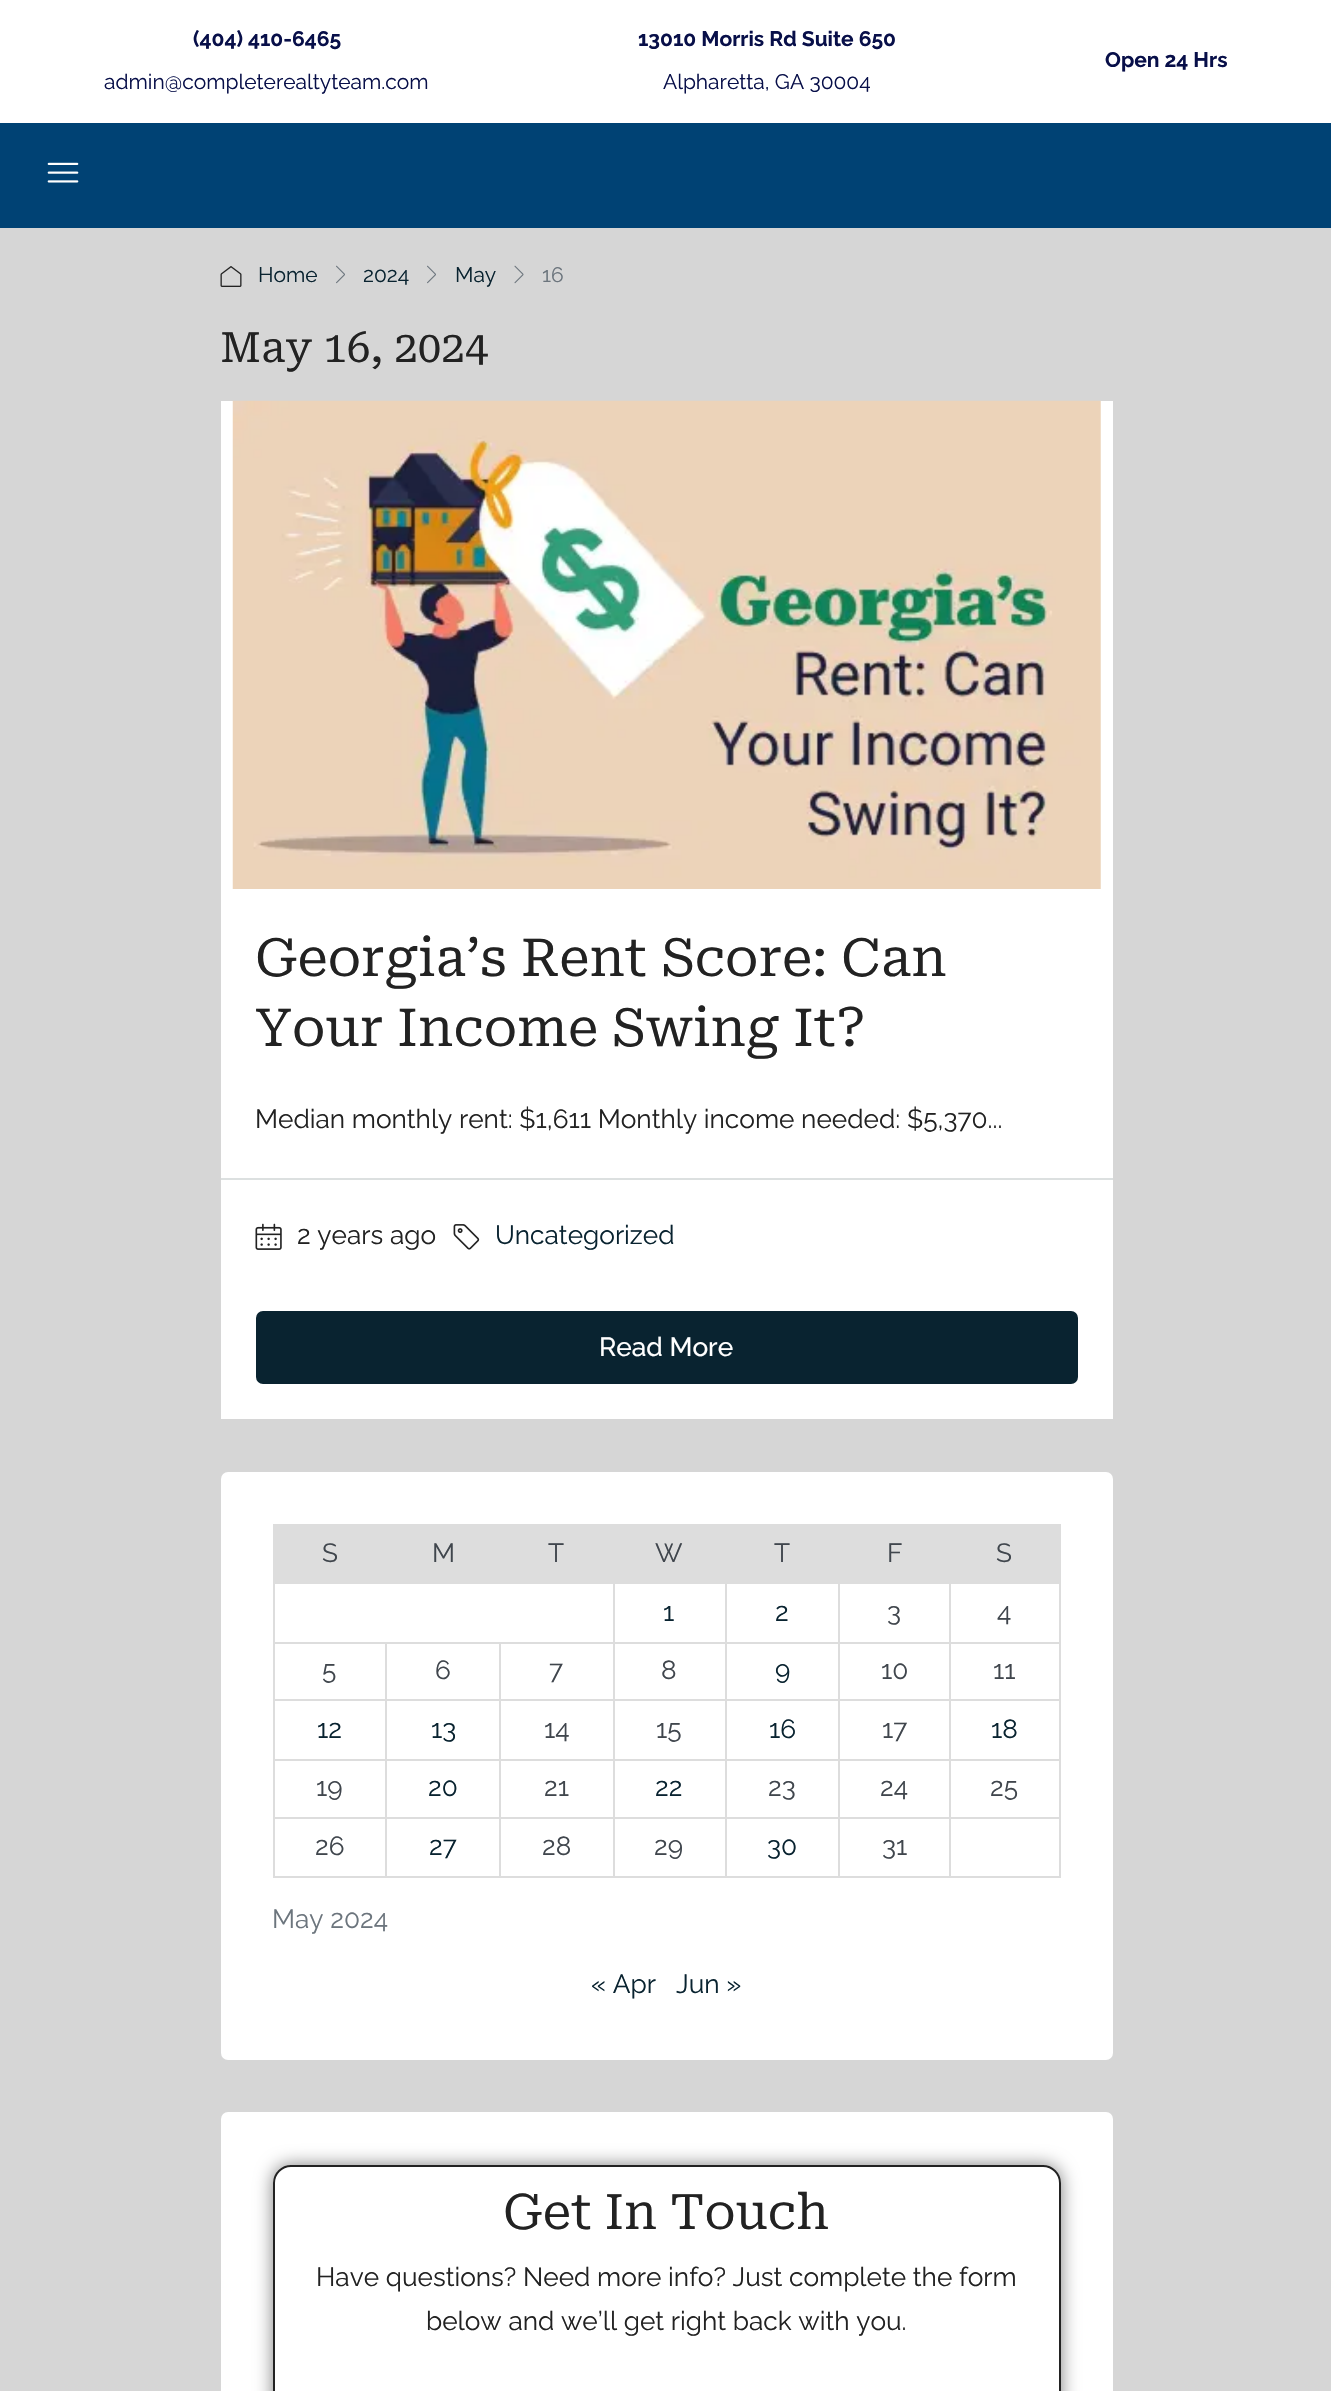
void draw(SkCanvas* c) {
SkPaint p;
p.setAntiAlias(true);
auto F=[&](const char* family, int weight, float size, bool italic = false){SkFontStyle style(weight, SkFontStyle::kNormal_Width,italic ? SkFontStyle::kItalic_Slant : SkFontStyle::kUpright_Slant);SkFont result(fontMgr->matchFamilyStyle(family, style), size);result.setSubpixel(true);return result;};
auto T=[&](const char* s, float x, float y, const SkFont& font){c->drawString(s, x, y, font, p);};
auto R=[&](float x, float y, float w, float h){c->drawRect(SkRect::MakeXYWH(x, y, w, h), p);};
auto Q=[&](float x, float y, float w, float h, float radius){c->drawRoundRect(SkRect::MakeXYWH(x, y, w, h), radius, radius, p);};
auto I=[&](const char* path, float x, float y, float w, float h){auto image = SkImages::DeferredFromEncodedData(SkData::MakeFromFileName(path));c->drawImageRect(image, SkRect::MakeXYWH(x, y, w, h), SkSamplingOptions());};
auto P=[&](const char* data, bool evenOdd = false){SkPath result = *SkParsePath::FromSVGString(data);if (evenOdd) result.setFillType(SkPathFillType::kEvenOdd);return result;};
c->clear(0xffd6d6d6);
p.setColor(0xffffffff);
R(0,0,1331,123);
auto f1 = F("Raleway",700,21);
p.setColor(0xff080f49);
T("(404) 410-6465",193,46,f1);
auto f2 = F("Raleway",400,21);
T("admin@completerealtyteam.com",104,89,f2);
T("13010 Morris Rd Suite 650",638,46,f1);
T("Alpharetta, GA 30004",663,89,f2);
T("Open 24 Hrs",1105,67,f1);
p.setColor(0xff004274);
R(0,123,1331,105);
I("1.png",47,162,32,21);
I("2.png",220,266,22,21);
p.setColor(0xff092330);
T("Home",258,282,f2);
I("3.png",336,265,9,19);
T("2024",363,282,f2);
I("3.png",427,265,9,19);
T("May",455,282,f2);
I("4.png",514,265,10,19);
p.setColor(0xff6c757d);
T("16",542,282,f2);
auto f3 = F("Roboto Serif",400,42);
p.setColor(0xff222222);
T("May 16, 2024",220,362,f3);
p.setColor(0xffffffff);
R(221,401,892,1018);
I("5.png",232,400,869,489);
auto f4 = F("Roboto Serif",400,52.5);
p.setColor(0xff222222);
T("Georgia’s Rent Score: Can",255,976,f4);
T("Your Income Swing It?",255,1046,f4);
auto f5 = F("Raleway",400,26.25);
T("Median monthly rent: $1,611 Monthly income needed: $5,370...",255,1128,f5);
p.setColor(0xffdce0e0);
R(221,1178,892,2);
I("6.png",255,1223,27,27);
p.setColor(0xff222222);
T("2 years ago",297,1244,f5);
I("7.png",453,1224,27,26);
p.setColor(0xff092330);
T("Uncategorized",495,1244,f5);
c->drawRoundRect(SkRect::MakeXYWH(257,1312,820,71),6,6,p);
p.setStroke(true);
p.setStrokeWidth(2);
c->drawRoundRect(SkRect::MakeXYWH(257,1312,820,71),6,6,p);
auto f6 = F("Raleway",500,26.25);
p.setStroke(false);
p.setColor(0xffffffff);
T("Read More",599,1356,f6);
Q(221,1472,892,588,7);
p.setColor(0xffdddddd);
R(273,1524,676,60);
p.setColor(0xff40464d);
T("S",322,1562,f5);
T("M",432,1562,f5);
T("T",548,1562,f5);
T("W",655,1562,f5);
T("T",774,1562,f5);
T("F",887,1562,f5);
p.setColor(0xffdddddd);
R(949,1526,110,56);
R(949,1524,112,2);
R(949,1582,112,2);
R(949,1642,112,2);
R(949,1699,112,2);
R(949,1759,112,2);
R(949,1817,112,2);
R(1059,1817,2,61);
R(1059,1759,2,59);
R(1059,1699,2,62);
R(1059,1642,2,59);
R(1059,1582,2,61);
R(1059,1524,2,60);
p.setColor(0xff40464d);
T("S",996,1562,f5);
p.setColor(0xffdddddd);
R(949,1876,112,2);
R(949,1817,2,61);
R(838,1817,112,2);
R(949,1759,2,59);
R(838,1759,112,2);
R(949,1699,2,62);
R(838,1699,112,2);
R(949,1642,2,59);
R(838,1642,112,2);
R(838,1876,112,2);
R(838,1817,2,61);
R(725,1817,115,2);
R(838,1759,2,59);
R(725,1759,115,2);
R(838,1699,2,62);
R(725,1699,115,2);
R(838,1642,2,59);
R(725,1642,115,2);
R(725,1876,115,2);
R(725,1817,2,61);
R(613,1817,113,2);
R(725,1759,2,59);
R(613,1759,113,2);
R(725,1699,2,62);
R(613,1699,113,2);
R(725,1642,2,59);
R(613,1642,113,2);
R(613,1876,113,2);
R(613,1817,2,61);
R(499,1817,115,2);
R(613,1759,2,59);
R(499,1759,115,2);
R(613,1699,2,62);
R(499,1699,115,2);
R(613,1642,2,59);
R(499,1642,115,2);
R(613,1582,2,61);
p.setColor(0xff092330);
T("1",663,1621,f5);
p.setColor(0xffdddddd);
R(725,1582,2,61);
p.setColor(0xff092330);
T("2",775,1621,f5);
p.setColor(0xffdddddd);
R(838,1582,2,61);
p.setColor(0xff40464d);
T("3",887,1621,f5);
p.setColor(0xffdddddd);
R(949,1582,2,61);
p.setColor(0xff40464d);
T("4",997,1621,f5);
p.setColor(0xffdddddd);
R(499,1876,115,2);
R(499,1817,2,61);
R(385,1817,116,2);
R(499,1759,2,59);
R(385,1759,116,2);
R(499,1699,2,62);
R(385,1699,116,2);
R(499,1642,2,59);
R(385,1642,116,2);
R(385,1876,116,2);
R(385,1817,2,61);
R(273,1817,114,2);
R(385,1759,2,59);
R(273,1759,114,2);
R(385,1699,2,62);
R(273,1699,114,2);
R(385,1642,2,59);
R(273,1642,114,2);
R(273,1876,114,2);
R(273,1817,2,61);
R(273,1759,2,59);
R(273,1699,2,62);
R(273,1582,2,119);
p.setColor(0xff40464d);
T("5",322,1679,f5);
T("6",435,1679,f5);
T("7",549,1679,f5);
T("8",661,1679,f5);
p.setColor(0xff092330);
T("9",775,1679,f5);
p.setColor(0xff40464d);
T("10",881,1679,f5);
T("11",993,1679,f5);
p.setColor(0xff092330);
T("12",317,1738,f5);
T("13",431,1738,f5);
p.setColor(0xff40464d);
T("14",544,1738,f5);
T("15",656,1738,f5);
p.setColor(0xff092330);
T("16",769,1738,f5);
p.setColor(0xff40464d);
T("17",882,1738,f5);
p.setColor(0xff092330);
T("18",991,1738,f5);
p.setColor(0xff40464d);
T("19",316,1796,f5);
p.setColor(0xff092330);
T("20",428,1796,f5);
p.setColor(0xff40464d);
T("21",544,1796,f5);
p.setColor(0xff092330);
T("22",655,1796,f5);
p.setColor(0xff40464d);
T("23",768,1796,f5);
T("24",880,1796,f5);
T("25",990,1796,f5);
T("26",315,1855,f5);
p.setColor(0xff092330);
T("27",429,1855,f5);
p.setColor(0xff40464d);
T("28",542,1855,f5);
T("29",654,1855,f5);
p.setColor(0xff092330);
T("30",767,1855,f5);
p.setColor(0xff40464d);
T("31",882,1855,f5);
p.setColor(0xff6c757d);
T("May 2024",272,1928,f5);
p.setColor(0xff092330);
T("« Apr",591,1993,f5);
T("Jun »",676,1993,f5);
p.setColor(0xffffffff);
Q(221,2112,892,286,7);
c->save();
c->clipPath(P("M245 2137h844v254h-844zm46 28h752c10 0 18 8 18 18v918c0 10-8 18-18 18h-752c-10 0-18-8-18-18v-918c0-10 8-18 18-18z",true),true);
p.setColor(0x80000000);
p.setMaskFilter(SkMaskFilter::MakeBlur(kNormal_SkBlurStyle, 9));
c->drawRoundRect(SkRect::MakeXYWH(273,2165,788,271),18,18,p);
p.setMaskFilter(nullptr);
c->restore();
p.setStroke(true);
p.setColor(0xff222222);
c->drawRoundRect(SkRect::MakeXYWH(274,2166,786,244),17,17,p);
auto f7 = F("Roboto Serif",400,49);
p.setStroke(false);
T("Get In Touch",503,2229,f7);
T("Have questions? Need more info? Just complete the form",316,2286,f5);
T("below and we’ll get right back with you.",426,2330,f5);
}
